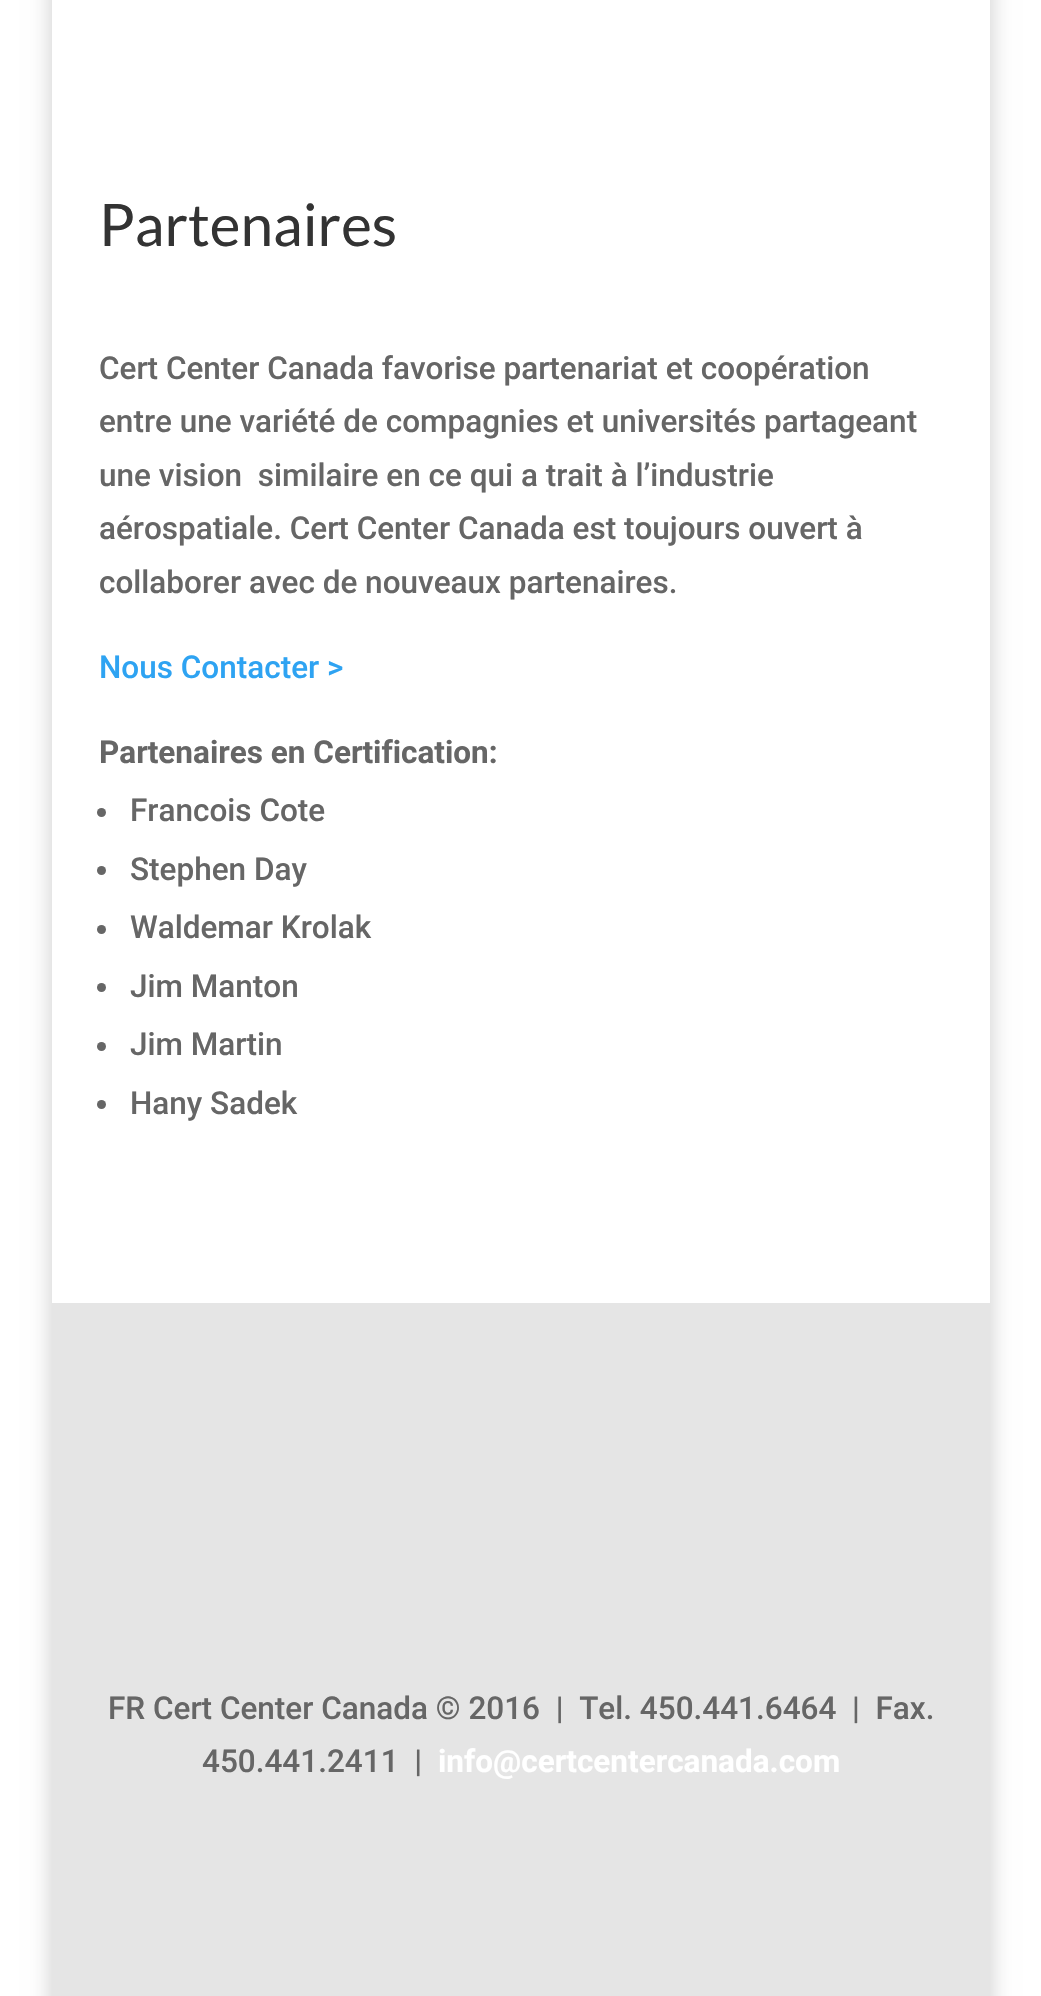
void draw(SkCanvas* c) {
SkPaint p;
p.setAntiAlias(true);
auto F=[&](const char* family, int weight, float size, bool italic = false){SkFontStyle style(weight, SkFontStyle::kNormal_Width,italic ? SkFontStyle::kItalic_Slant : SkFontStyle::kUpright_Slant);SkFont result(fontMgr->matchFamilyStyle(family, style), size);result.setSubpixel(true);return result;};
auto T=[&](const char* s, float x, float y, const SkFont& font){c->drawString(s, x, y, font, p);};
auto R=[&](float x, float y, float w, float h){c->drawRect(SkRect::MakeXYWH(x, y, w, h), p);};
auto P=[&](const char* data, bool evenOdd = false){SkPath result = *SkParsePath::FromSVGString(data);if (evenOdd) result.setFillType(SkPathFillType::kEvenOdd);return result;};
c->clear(0xffffffff);
c->save();
c->clipPath(P("M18 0h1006v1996h-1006zm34-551h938v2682h-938z",true),true);
p.setColor(0x33000000);
p.setMaskFilter(SkMaskFilter::MakeBlur(kNormal_SkBlurStyle, 11));
c->drawRect(SkRect::MakeXYWH(52,-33,938,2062),p);
p.setMaskFilter(nullptr);
c->restore();
auto f1 = F("Lato",400,58.5);
p.setColor(0xff333333);
T("Partenaires",99,246,f1);
auto f2 = F("Roboto",500,31.5);
p.setColor(0xff666666);
T("Cert Center Canada favorise partenariat et coopération",99,379,f2);
T("entre une variété de compagnies et universités partageant",99,432,f2);
T("une vision  similaire en ce qui a trait à l’industrie",99,486,f2);
T("aérospatiale. Cert Center Canada est toujours ouvert à",99,539,f2);
T("collaborer avec de nouveaux partenaires.",99,593,f2);
p.setColor(0xff2ea3f2);
T("Nous Contacter >",99,678,f2);
auto f3 = F("Roboto",700,31.5);
p.setColor(0xff666666);
T("Partenaires en Certification:",99,763,f3);
c->drawCircle(101.5,812.5,4.5,p);
T("Francois Cote",130,821,f2);
c->drawCircle(101.5,870.5,4.5,p);
T("Stephen Day",130,880,f2);
c->drawCircle(101.5,929.5,4.5,p);
T("Waldemar Krolak",130,938,f2);
c->drawCircle(101.5,987.5,4.5,p);
T("Jim Manton",130,997,f2);
c->drawCircle(101.5,1046.5,4.5,p);
T("Jim Martin",130,1055,f2);
c->drawCircle(101.5,1104.5,4.5,p);
T("Hany Sadek",130,1114,f2);
p.setColor(0xffe5e5e5);
R(52,1303,938,693);
p.setColor(0xff666666);
T("FR Cert Center Canada © 2016  |  Tel. 450.441.6464  |  Fax.",108,1719,f2);
T("450.441.2411  |",202,1772,f2);
p.setColor(0xffffffff);
T("info@certcentercanada.com",438,1772,f3);
}
